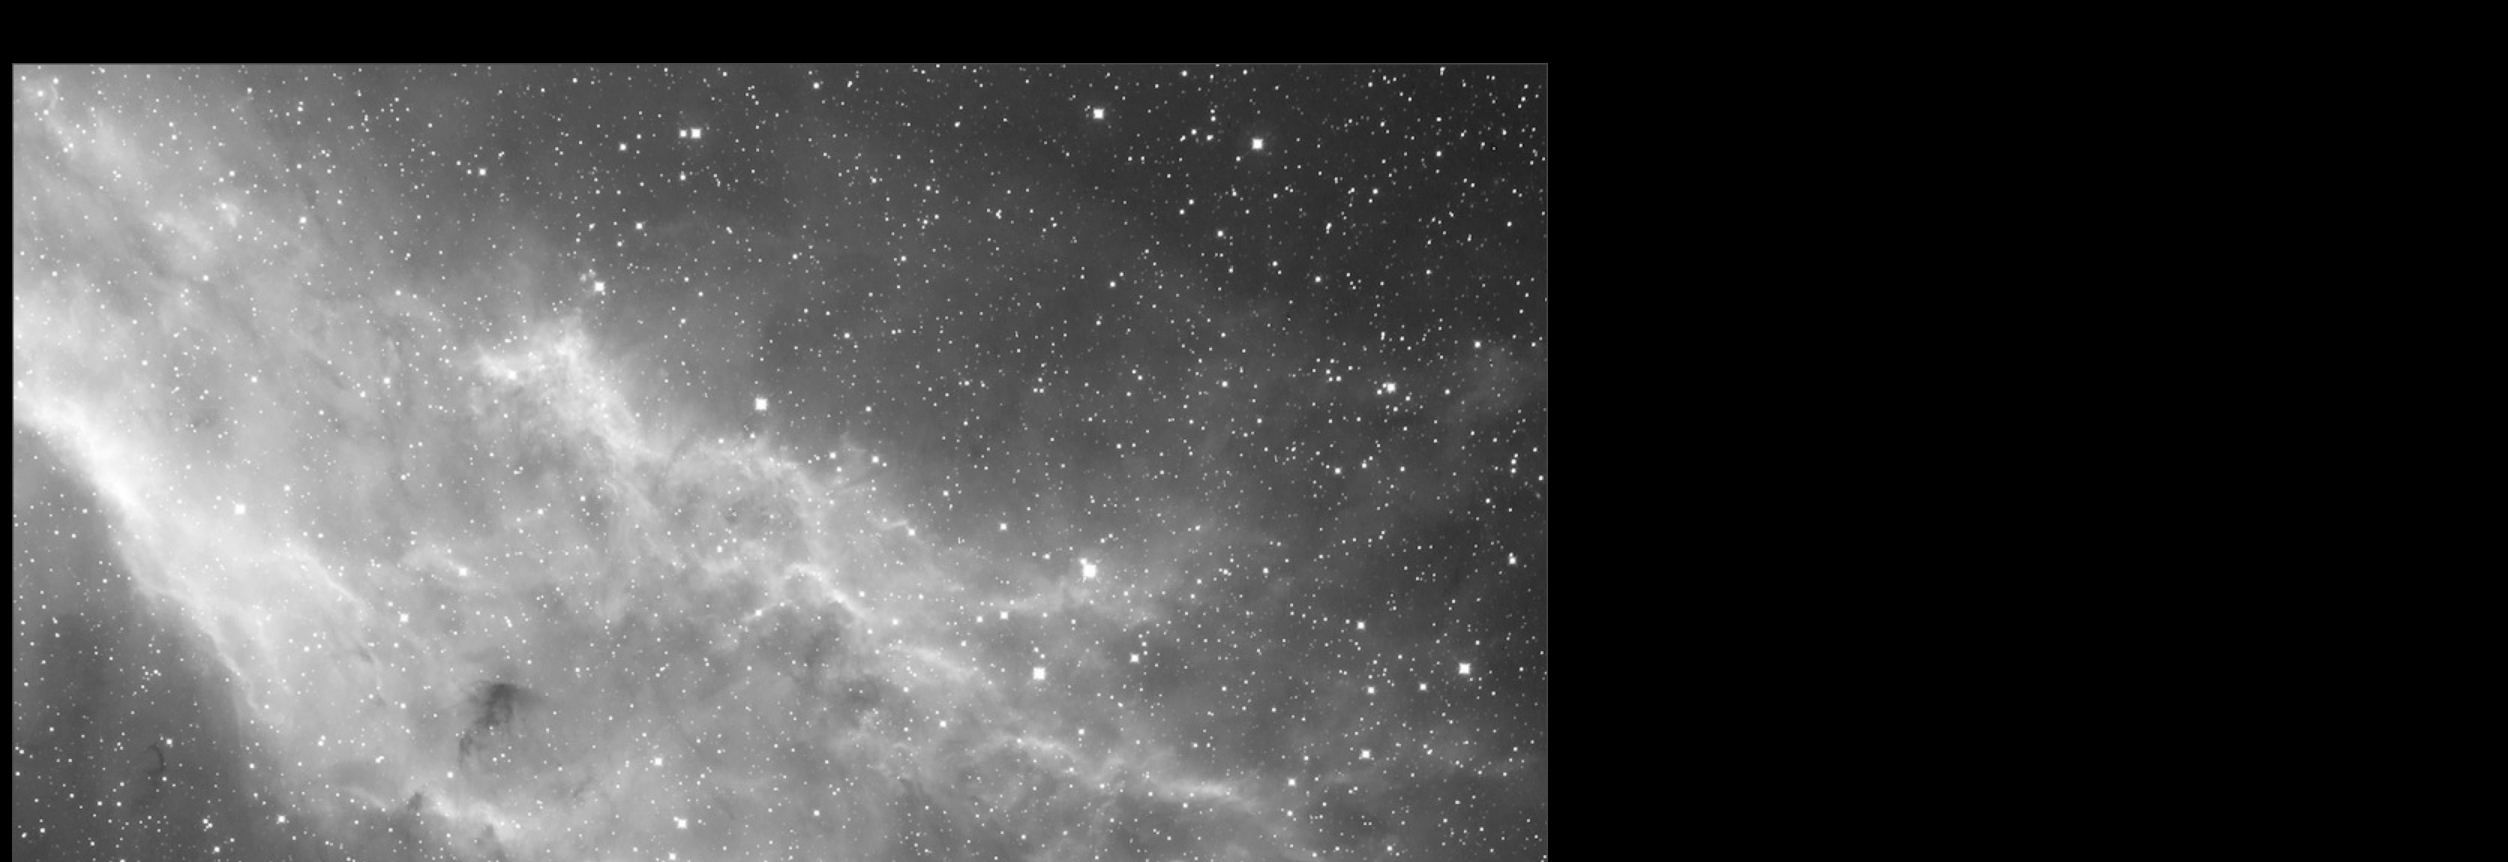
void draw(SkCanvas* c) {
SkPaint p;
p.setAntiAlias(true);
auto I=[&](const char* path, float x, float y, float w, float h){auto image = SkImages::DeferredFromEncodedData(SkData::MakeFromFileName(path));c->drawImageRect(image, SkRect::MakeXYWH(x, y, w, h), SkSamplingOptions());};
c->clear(0xff000000);
I("1.png",12,63,1536,799);
}
